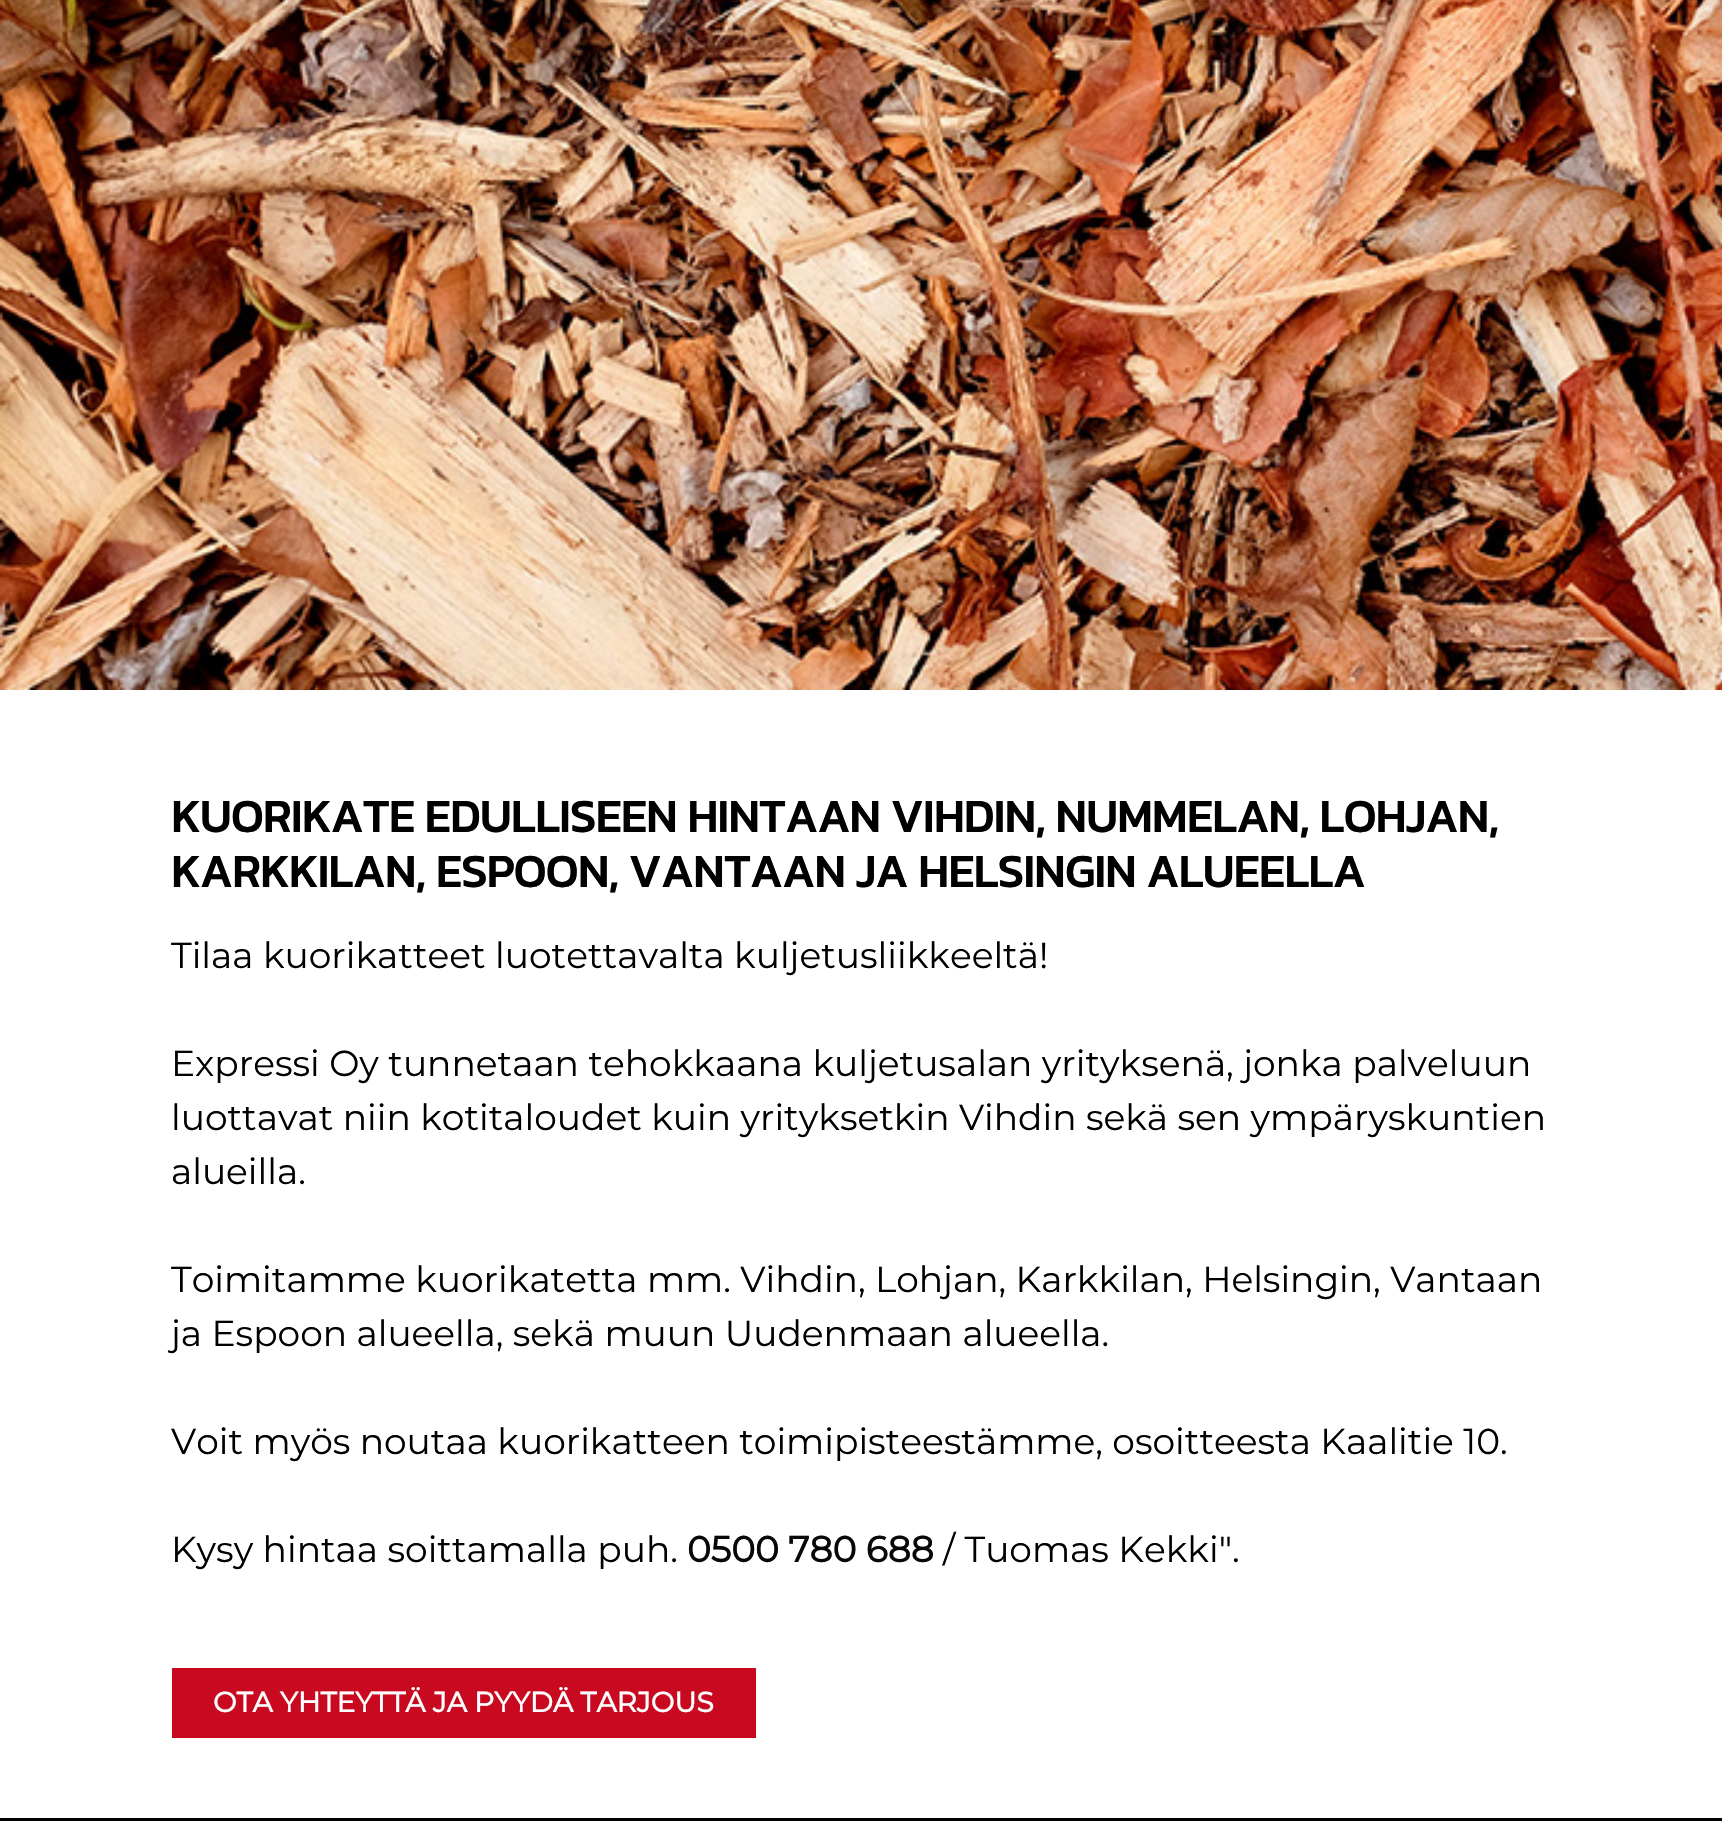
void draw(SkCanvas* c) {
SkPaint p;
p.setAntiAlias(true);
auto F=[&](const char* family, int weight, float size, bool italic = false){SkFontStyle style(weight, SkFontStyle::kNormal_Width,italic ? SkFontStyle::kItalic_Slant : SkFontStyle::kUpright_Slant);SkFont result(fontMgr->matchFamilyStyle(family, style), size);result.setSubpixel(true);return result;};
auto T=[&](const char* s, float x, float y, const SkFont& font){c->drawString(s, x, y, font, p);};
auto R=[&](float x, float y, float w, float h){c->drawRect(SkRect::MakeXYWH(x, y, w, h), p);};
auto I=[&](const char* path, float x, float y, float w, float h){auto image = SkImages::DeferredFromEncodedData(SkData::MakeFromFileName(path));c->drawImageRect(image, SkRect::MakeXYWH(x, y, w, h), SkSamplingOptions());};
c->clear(0xffffffff);
I("1.png",0,0,1722,690);
auto f1 = F("Kanit",700,46);
p.setColor(0xff000000);
T("KUORIKATE EDULLISEEN HINTAAN VIHDIN, NUMMELAN, LOHJAN,",171,832,f1);
T("KARKKILAN, ESPOON, VANTAAN JA HELSINGIN ALUEELLA",171,887,f1);
auto f2 = F("Montserrat",100,36);
T("Tilaa kuorikatteet luotettavalta kuljetusliikkeeltä!",171,968,f2);
T("Expressi Oy tunnetaan tehokkaana kuljetusalan yrityksenä, jonka palveluun",171,1076,f2);
T("luottavat niin kotitaloudet kuin yrityksetkin Vihdin sekä sen ympäryskuntien",171,1130,f2);
T("alueilla.",171,1184,f2);
T("Toimitamme kuorikatetta mm. Vihdin, Lohjan, Karkkilan, Helsingin, Vantaan",171,1292,f2);
T("ja Espoon alueella, sekä muun Uudenmaan alueella.",171,1346,f2);
T("Voit myös noutaa kuorikatteen toimipisteestämme, osoitteesta Kaalitie 10.",171,1454,f2);
T("Kysy hintaa soittamalla puh.",171,1562,f2);
auto f3 = F("Montserrat",700,36);
p.setColor(0xff090808);
T("0500 780 688",687,1562,f3);
p.setColor(0xff000000);
T("/ Tuomas Kekki\".",943,1562,f2);
p.setColor(0xffc8091f);
R(172,1668,584,70);
auto f4 = F("Montserrat",700,28);
p.setColor(0xffffffff);
T("OTA YHTEYTTÄ JA PYYDÄ TARJOUS",213,1712,f4);
p.setColor(0xff000000);
R(0,1818,1722,3);
}
